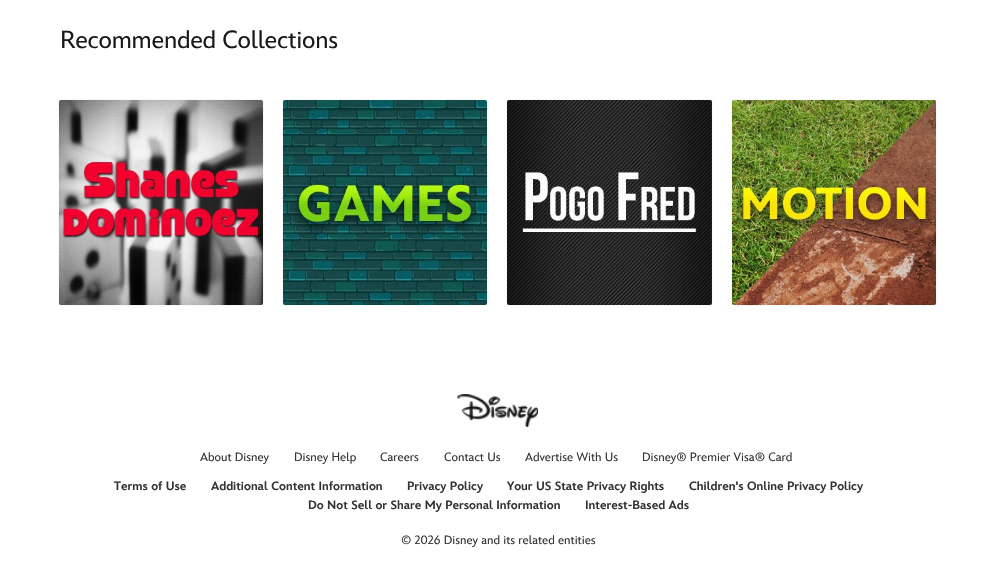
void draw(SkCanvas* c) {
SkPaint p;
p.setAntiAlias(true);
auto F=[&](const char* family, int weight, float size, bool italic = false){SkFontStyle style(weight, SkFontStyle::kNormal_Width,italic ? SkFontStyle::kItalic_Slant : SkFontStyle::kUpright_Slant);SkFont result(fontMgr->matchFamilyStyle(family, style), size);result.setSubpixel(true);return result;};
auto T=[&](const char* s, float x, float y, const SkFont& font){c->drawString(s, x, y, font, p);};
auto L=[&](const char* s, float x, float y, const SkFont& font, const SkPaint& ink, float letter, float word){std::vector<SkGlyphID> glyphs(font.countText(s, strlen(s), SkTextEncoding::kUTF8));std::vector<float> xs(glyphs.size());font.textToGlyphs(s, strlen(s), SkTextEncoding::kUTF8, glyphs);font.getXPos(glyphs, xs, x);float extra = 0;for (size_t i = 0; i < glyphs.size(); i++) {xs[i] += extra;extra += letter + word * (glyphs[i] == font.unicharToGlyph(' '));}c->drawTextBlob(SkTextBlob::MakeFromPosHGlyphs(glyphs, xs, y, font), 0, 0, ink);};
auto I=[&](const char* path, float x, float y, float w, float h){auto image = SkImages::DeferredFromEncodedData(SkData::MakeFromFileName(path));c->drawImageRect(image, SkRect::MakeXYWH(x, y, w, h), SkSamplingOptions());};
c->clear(0xffffffff);
auto f1 = F("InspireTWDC",400,24.75);
p.setColor(0xff1a1a1a);
L("Recommended Collections",60,48,f1,p,-.25,0);
p.setColor(0x40000000);
p.setMaskFilter(SkMaskFilter::MakeBlur(kNormal_SkBlurStyle, .5));
c->drawRoundRect(SkRect::MakeXYWH(59,100,204,205),2,2,p);
p.setMaskFilter(nullptr);
I("1.png",59,100,204,205);
p.setMaskFilter(SkMaskFilter::MakeBlur(kNormal_SkBlurStyle, .5));
c->drawRoundRect(SkRect::MakeXYWH(283,100,204,205),2,2,p);
p.setMaskFilter(nullptr);
I("2.png",283,100,204,205);
p.setMaskFilter(SkMaskFilter::MakeBlur(kNormal_SkBlurStyle, .5));
c->drawRoundRect(SkRect::MakeXYWH(507,100,205,205),2,2,p);
p.setMaskFilter(nullptr);
I("3.png",507,100,205,205);
p.setMaskFilter(SkMaskFilter::MakeBlur(kNormal_SkBlurStyle, .5));
c->drawRoundRect(SkRect::MakeXYWH(732,100,204,205),2,2,p);
p.setMaskFilter(nullptr);
I("4.png",732,100,204,205);
I("5.png",457,394,81,33);
auto f2 = F("InspireTWDC",400,12);
p.setColor(0xff333333);
T("About Disney",200,461,f2);
T("Disney Help",294,461,f2);
T("Careers",380,461,f2);
T("Contact Us",444,461,f2);
T("Advertise With Us",525,461,f2);
T("Disney® Premier Visa® Card",642,461,f2);
auto f3 = F("InspireTWDC",900,12);
T("Terms of Use",114,490,f3);
T("Additional Content Information",211,490,f3);
T("Privacy Policy",407,490,f3);
T("Your US State Privacy Rights",507,490,f3);
T("Children's Online Privacy Policy",689,490,f3);
T("Do Not Sell or Share My Personal Information",308,509,f3);
T("Interest-Based Ads",585,509,f3);
T("© 2026 Disney and its related entities",401,544,f2);
}
